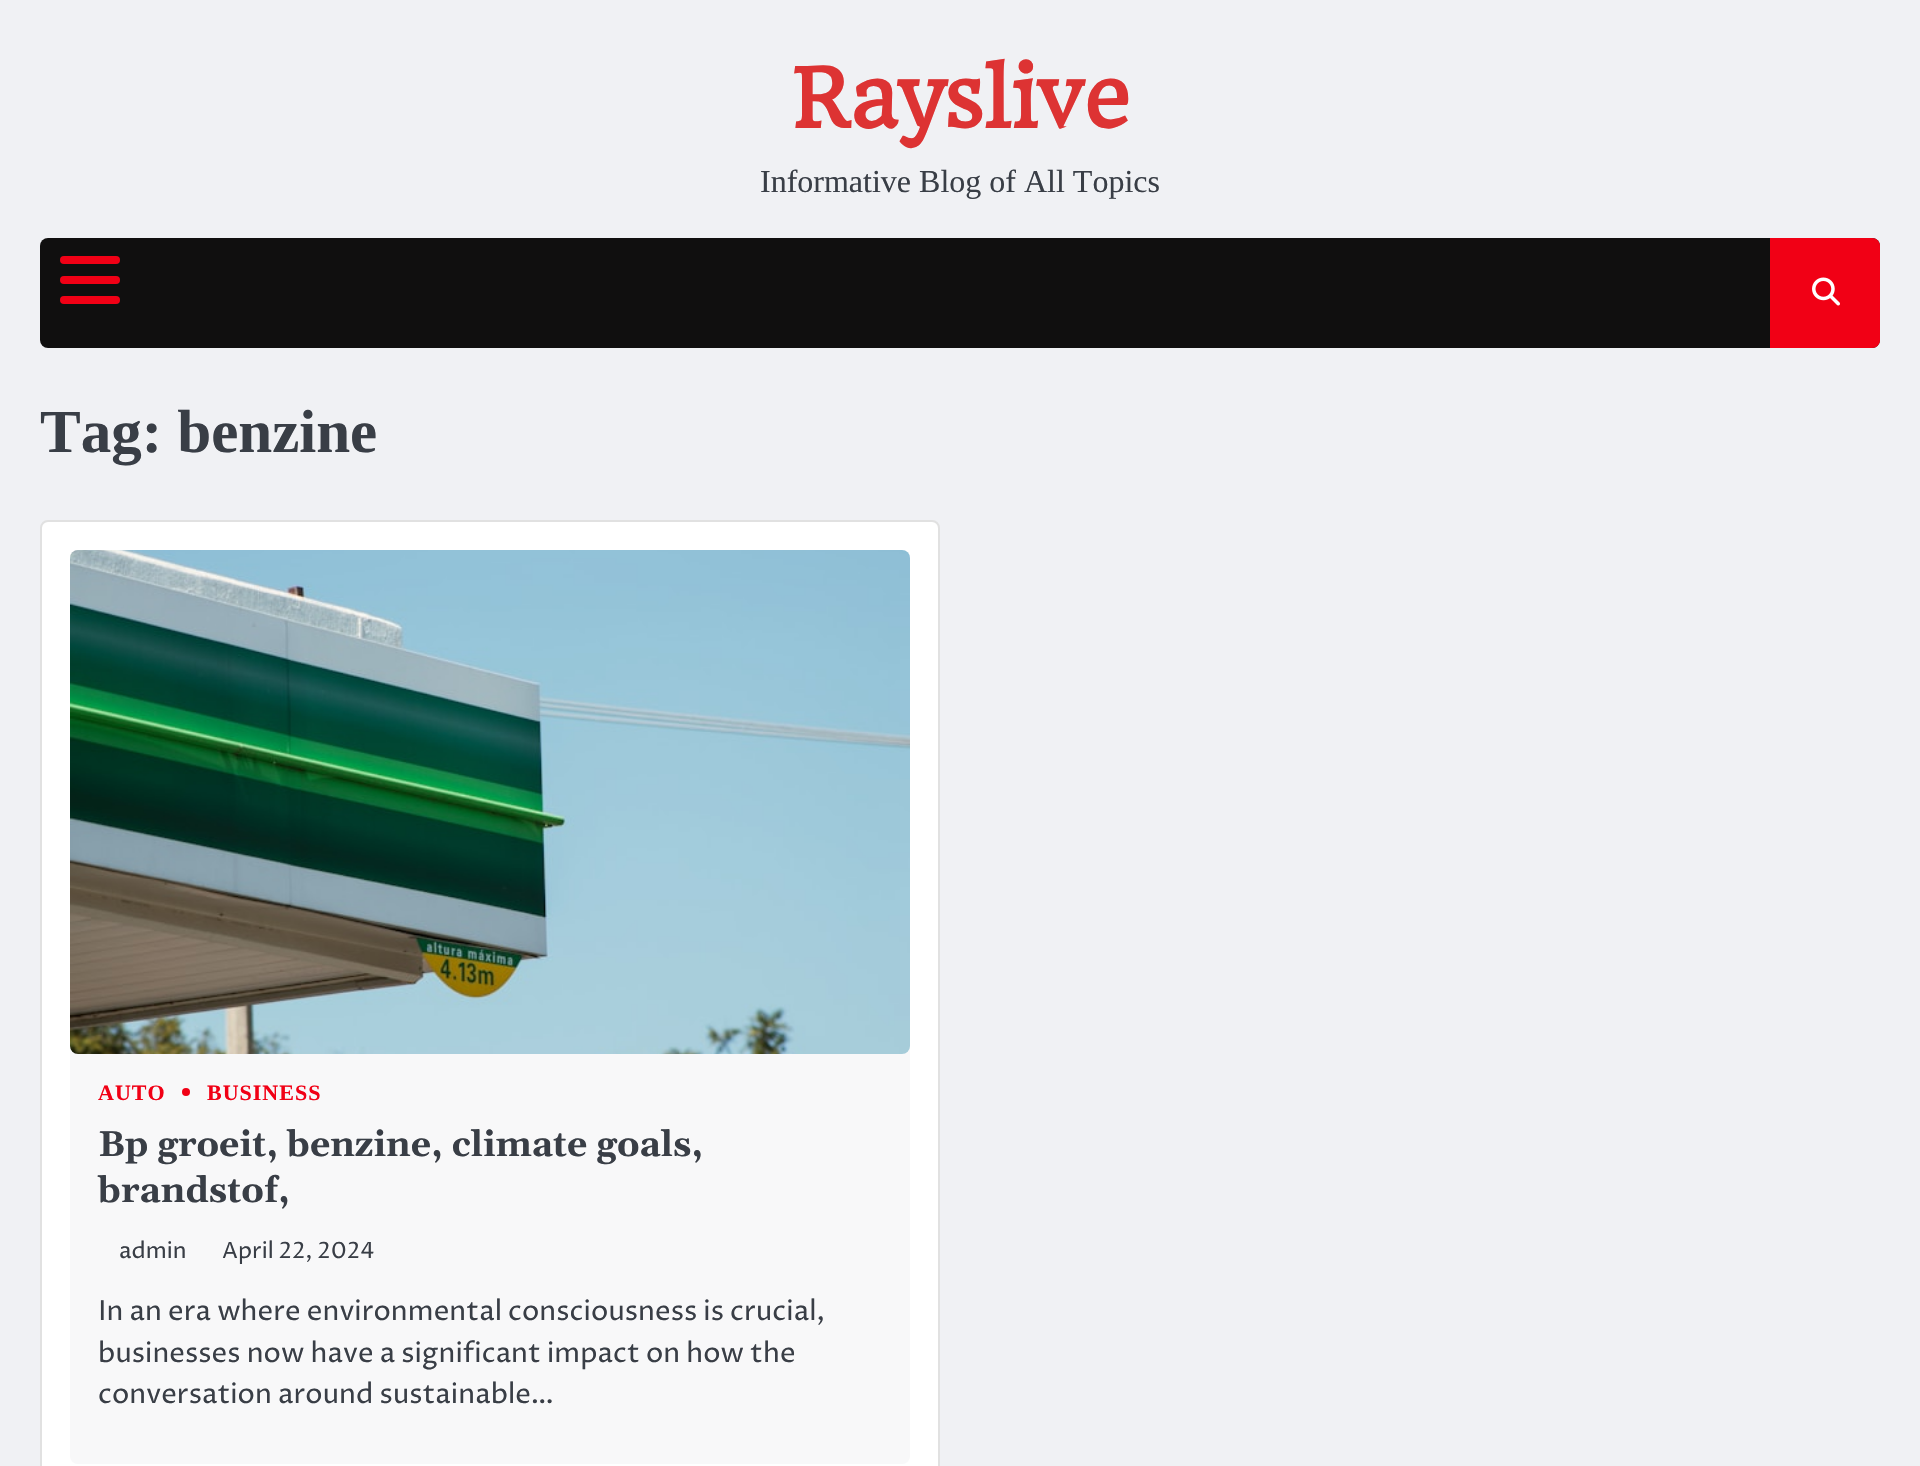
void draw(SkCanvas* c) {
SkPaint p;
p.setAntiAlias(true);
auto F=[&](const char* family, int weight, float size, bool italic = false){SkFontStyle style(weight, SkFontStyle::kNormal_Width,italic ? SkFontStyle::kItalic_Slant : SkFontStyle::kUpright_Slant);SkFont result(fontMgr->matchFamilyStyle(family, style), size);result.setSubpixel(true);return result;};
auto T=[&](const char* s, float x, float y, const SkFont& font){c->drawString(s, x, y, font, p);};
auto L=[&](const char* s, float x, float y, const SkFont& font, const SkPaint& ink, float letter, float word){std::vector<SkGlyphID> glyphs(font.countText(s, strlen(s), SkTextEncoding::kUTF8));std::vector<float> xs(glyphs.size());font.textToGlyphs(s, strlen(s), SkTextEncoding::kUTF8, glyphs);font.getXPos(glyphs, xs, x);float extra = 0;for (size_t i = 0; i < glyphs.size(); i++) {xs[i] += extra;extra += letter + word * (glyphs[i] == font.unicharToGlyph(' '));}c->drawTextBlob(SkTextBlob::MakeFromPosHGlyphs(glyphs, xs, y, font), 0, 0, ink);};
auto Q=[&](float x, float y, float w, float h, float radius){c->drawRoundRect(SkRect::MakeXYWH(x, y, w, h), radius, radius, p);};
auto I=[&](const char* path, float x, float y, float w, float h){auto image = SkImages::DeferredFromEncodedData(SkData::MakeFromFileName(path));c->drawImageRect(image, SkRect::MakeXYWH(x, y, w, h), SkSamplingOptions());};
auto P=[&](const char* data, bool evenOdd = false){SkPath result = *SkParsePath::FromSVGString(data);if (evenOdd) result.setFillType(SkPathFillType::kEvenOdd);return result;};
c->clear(0xfff0f1f4);
auto f1 = F("HeadlandOne",700,80);
p.setColor(0xffdd3333);
T("Rayslive",790,128,f1);
auto f2 = F("Liberation Serif",400,32);
p.setColor(0xff393e46);
T("Informative Blog of All Topics",760,192,f2);
p.setColor(0xff100f0f);
Q(40,238,1840,110,8);
p.setColor(0xfff10015);
Q(60,256,60,8,4);
Q(60,276,60,8,4);
Q(60,296,60,8,4);
c->drawPath(P("M1770 238h102c4.5 0 8 3.5 8 8v94c0 4.5-3.5 8-8 8h-102z"),p);
I("1.png",1812,277,28,29);
auto f3 = F("Liberation Serif",700,61);
p.setColor(0xff393e46);
T("Tag: benzine",40,452,f3);
p.setColor(0xffffffff);
c->drawRoundRect(SkRect::MakeXYWH(41,521,898,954),7,7,p);
p.setStroke(true);
p.setStrokeWidth(2);
p.setColor(0xffe1e1e1);
c->drawRoundRect(SkRect::MakeXYWH(41,521,898,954),7,7,p);
p.setStroke(false);
p.setColor(0xfff8f8f9);
Q(70,550,840,914,8);
I("2.png",70,550,840,504);
auto f4 = F("Liberation Serif",700,22);
p.setColor(0xfff10015);
L("AUTO",98,1100,f4,p,1,0);
c->drawCircle(186,1092,4,p);
L("BUSINESS",207,1100,f4,p,1,0);
auto f5 = F("Gelasio",700,35.6);
p.setColor(0xff393e46);
T("Bp groeit, benzine, climate goals,",98,1156,f5);
T("brandstof,",98,1202,f5);
auto f6 = F("Proza Libre",400,22.5);
T("admin",119,1258,f6);
T("April 22, 2024",222,1258,f6);
auto f7 = F("Proza Libre",400,27.6);
T("In an era where environmental consciousness is crucial,",98,1320,f7);
T("businesses now have a significant impact on how the",98,1362,f7);
T("conversation around sustainable…",98,1403,f7);
}
